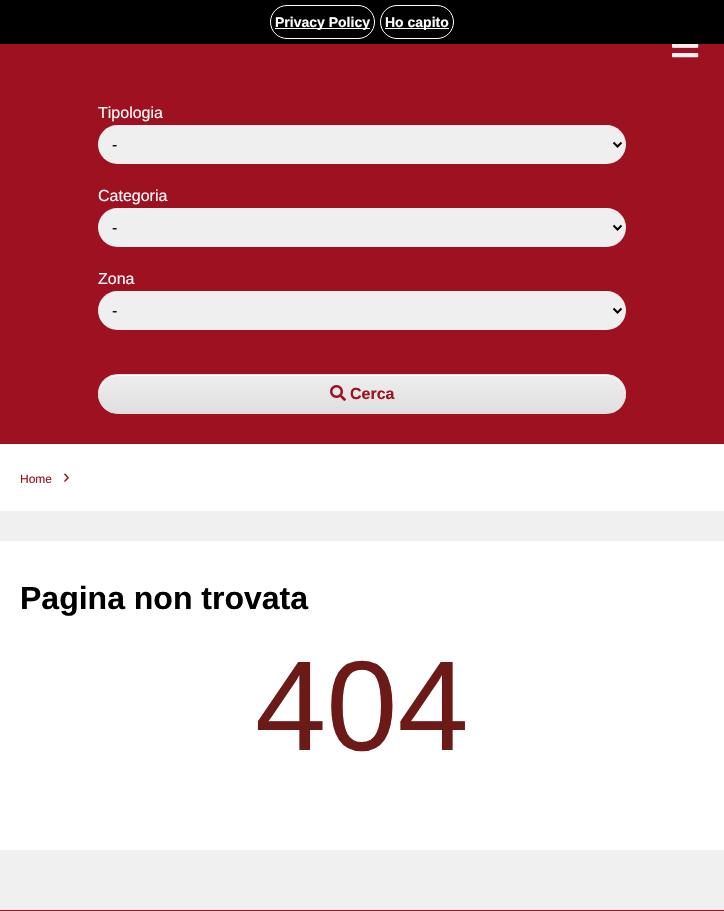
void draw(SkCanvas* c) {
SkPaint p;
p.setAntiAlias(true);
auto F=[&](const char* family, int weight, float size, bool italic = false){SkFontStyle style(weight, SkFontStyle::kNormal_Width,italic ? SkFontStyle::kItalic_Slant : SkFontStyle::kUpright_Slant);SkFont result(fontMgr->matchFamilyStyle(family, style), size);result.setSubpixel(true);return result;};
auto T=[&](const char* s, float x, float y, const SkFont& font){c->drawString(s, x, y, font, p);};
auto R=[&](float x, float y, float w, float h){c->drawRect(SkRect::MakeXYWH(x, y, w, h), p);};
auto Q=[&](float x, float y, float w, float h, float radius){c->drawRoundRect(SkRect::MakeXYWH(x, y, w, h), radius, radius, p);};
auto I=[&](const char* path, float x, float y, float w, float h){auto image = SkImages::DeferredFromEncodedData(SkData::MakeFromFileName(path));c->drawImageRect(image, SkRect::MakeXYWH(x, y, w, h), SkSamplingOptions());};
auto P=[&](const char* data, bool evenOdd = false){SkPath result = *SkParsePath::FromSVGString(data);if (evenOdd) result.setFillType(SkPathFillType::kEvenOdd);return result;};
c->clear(0xfff0f0f0);
p.setColor(0xff000000);
R(0,0,724,44);
p.setStroke(true);
p.setStrokeWidth(1);
p.setColor(0xffffffff);
c->drawRoundRect(SkRect::MakeXYWH(270.5,5.5,104,33),16.5,16.5,p);
p.setStroke(false);
R(275,28,95,1);
auto f1 = F("Liberation Sans",700,14);
T("Privacy Policy",275,27,f1);
p.setStroke(true);
c->drawRoundRect(SkRect::MakeXYWH(380.5,5.5,73,33),16.5,16.5,p);
p.setStroke(false);
R(385,28,64,1);
T("Ho capito",385,27,f1);
p.setColor(0xff9d1120);
R(0,44,724,400);
I("1.png",672,44,27,14);
auto f2 = F("Liberation Sans",400,16);
p.setColor(0xffffffff);
T("Tipologia",98,118,f2);
p.setColor(0xffefefef);
Q(98,125,528,39,19.5);
p.setStroke(true);
p.setStrokeWidth(2);
p.setColor(0xff000000);
c->drawPath(P("M613.5 142.5l4 4l4-4"),p);
p.setStroke(false);
T("-",112,150,f2);
p.setColor(0xffffffff);
T("Categoria",98,201,f2);
p.setColor(0xffefefef);
Q(98,208,528,39,19.5);
p.setStroke(true);
p.setColor(0xff000000);
c->drawPath(P("M613.5 225.5l4 4l4-4"),p);
p.setStroke(false);
T("-",112,233,f2);
p.setColor(0xffffffff);
T("Zona",98,284,f2);
p.setColor(0xffefefef);
Q(98,291,528,39,19.5);
p.setStroke(true);
p.setColor(0xff000000);
c->drawPath(P("M613.5 308.5l4 4l4-4"),p);
p.setStroke(false);
T("-",112,316,f2);
c->save();
c->clipPath(P("M118 374h488c11 0 20 9 20 20c0 11-9 20-20 20h-488c-11 0-20-9-20-20c0-11 9-20 20-20z"),true);
{
const SkColor colors[] = {0xffededed,0xffdfdfdf};
const float stops[] = {.05,1};
const SkPoint ends[] = {{362,375}, {362,413}};
p.setShader(SkGradientShader::MakeLinear(ends, colors, stops, 2, SkTileMode::kClamp));
p.setAlpha(255);
}
R(98,375,528,38);
c->restore();
p.setShader(nullptr);
p.setColor(0xffffffff);
c->drawPath(P("M118 376h488c10 0 19 9 19 19v-1c0-10-9-19-19-19h-488c-10 0-19 9-19 19v1c0-10 9-19 19-19z"),p);
p.setStroke(true);
p.setStrokeWidth(1);
p.setColor(0xffdcdcdc);
c->drawRoundRect(SkRect::MakeXYWH(98.5,374.5,527,39),19.5,19.5,p);
I("2.png",330,385,16,16);
auto f3 = F("Liberation Sans",700,16);
p.setStroke(false);
p.setColor(0xff9d1120);
T("Cerca",350,399,f3);
p.setColor(0xffffffff);
R(0,444,724,67);
auto f4 = F("Liberation Sans",400,12);
p.setColor(0xff9d1120);
T("Home",20,483,f4);
auto f5 = F("Liberation Sans",400,20);
T("›",63,483,f5);
p.setColor(0xffffffff);
R(0,541,724,309);
auto f6 = F("Liberation Sans",700,32);
p.setColor(0xff000000);
T("Pagina non trovata",20,609,f6);
auto f7 = F("Liberation Sans",400,128);
p.setColor(0xff6b1a18);
T("404",255,750,f7);
p.setColor(0xff9d1120);
R(0,910,724,1);
}
